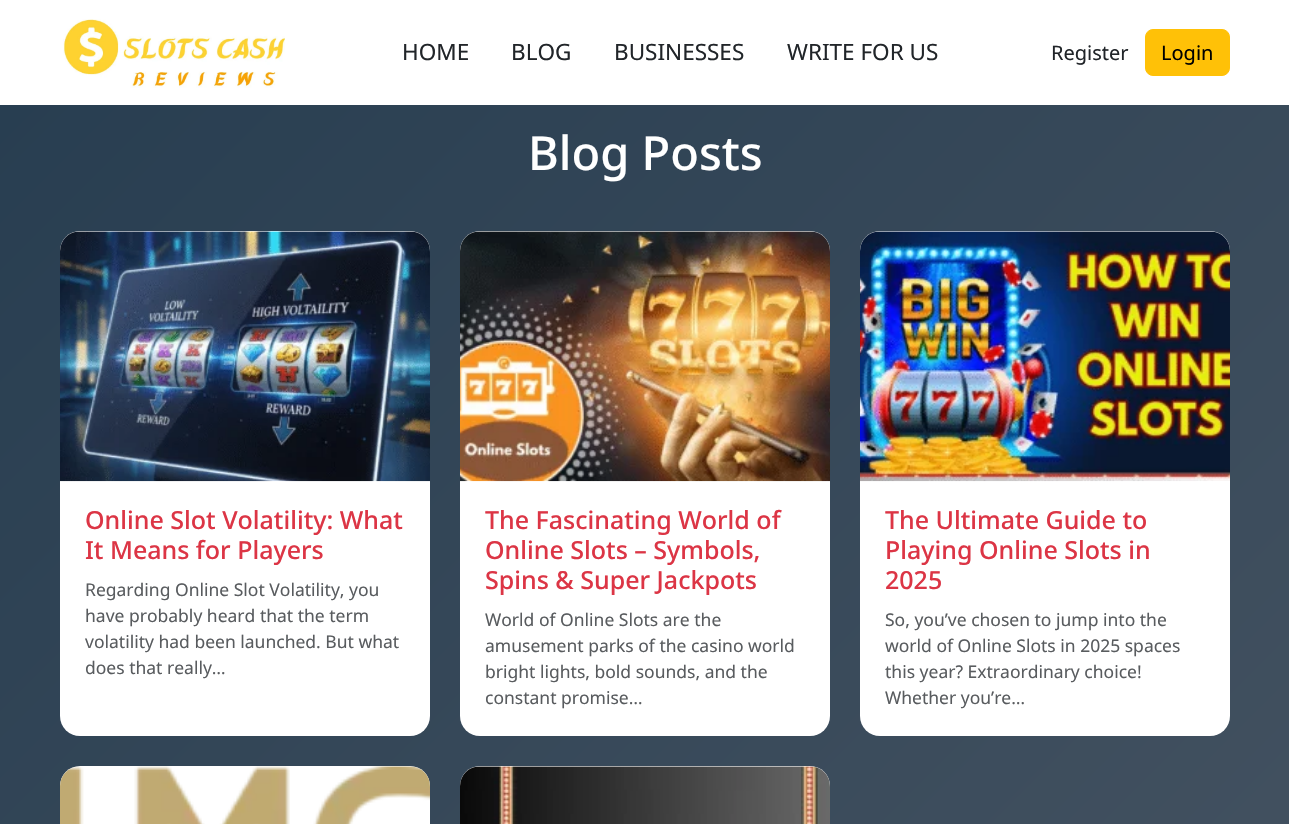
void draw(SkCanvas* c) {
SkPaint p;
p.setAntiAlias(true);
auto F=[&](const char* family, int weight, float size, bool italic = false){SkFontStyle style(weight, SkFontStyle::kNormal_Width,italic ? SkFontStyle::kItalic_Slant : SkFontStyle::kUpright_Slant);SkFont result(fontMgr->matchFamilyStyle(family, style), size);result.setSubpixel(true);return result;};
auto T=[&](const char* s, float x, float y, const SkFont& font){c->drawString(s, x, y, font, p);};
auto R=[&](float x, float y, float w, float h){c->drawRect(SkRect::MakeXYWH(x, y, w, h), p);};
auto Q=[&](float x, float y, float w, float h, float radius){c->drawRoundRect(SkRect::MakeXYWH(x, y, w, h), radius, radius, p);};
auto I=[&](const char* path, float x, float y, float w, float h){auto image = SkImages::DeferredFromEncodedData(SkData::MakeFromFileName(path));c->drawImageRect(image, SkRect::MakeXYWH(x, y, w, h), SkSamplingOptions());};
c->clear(0xffffffff);
I("1.png",63,19,222,69);
auto f1 = F("Noto Sans",400,22.5);
p.setColor(0xff212529);
T("HOME",402,60,f1);
T("BLOG",511,60,f1);
T("BUSINESSES",614,60,f1);
T("WRITE FOR US",787,60,f1);
auto f2 = F("Noto Sans",400,20);
T("Register",1051,60,f2);
p.setColor(0xffffc107);
c->drawRoundRect(SkRect::MakeXYWH(1145.5,29.5,84,46),7.5,7.5,p);
p.setStroke(true);
p.setStrokeWidth(1);
c->drawRoundRect(SkRect::MakeXYWH(1145.5,29.5,84,46),7.5,7.5,p);
p.setStroke(false);
p.setColor(0xff000000);
T("Login",1161,60,f2);
{
const SkColor colors[] = {0xff283e51,0xff485563};
const float stops[] = {0,1};
const SkPoint ends[] = {{11,94}, {1279,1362}};
p.setShader(SkGradientShader::MakeLinear(ends, colors, stops, 2, SkTileMode::kClamp));
p.setAlpha(255);
}
R(0,105,1289,719);
auto f3 = F("Noto Sans",500,47);
p.setShader(nullptr);
p.setColor(0xffffffff);
T("Blog Posts",528,170,f3);
Q(60,231,370,505,20);
I("2.png",60,231,370,251);
auto f4 = F("Noto Sans",500,25);
p.setColor(0xffdc3545);
T("Online Slot Volatility: What",85,529,f4);
T("It Means for Players",85,559,f4);
auto f5 = F("Noto Sans",400,17.5);
p.setColor(0xff595c5f);
T("Regarding Online Slot Volatility, you",85,596,f5);
T("have probably heard that the term",85,622,f5);
T("volatility had been launched. But what",85,648,f5);
T("does that really…",85,674,f5);
p.setColor(0xffffffff);
Q(460,231,370,505,20);
I("3.png",460,231,370,251);
p.setColor(0xffdc3545);
T("The Fascinating World of",485,529,f4);
T("Online Slots – Symbols,",485,559,f4);
T("Spins & Super Jackpots",485,589,f4);
p.setColor(0xff595c5f);
T("World of Online Slots are the",485,626,f5);
T("amusement parks of the casino world",485,652,f5);
T("bright lights, bold sounds, and the",485,678,f5);
T("constant promise…",485,704,f5);
p.setColor(0xffffffff);
Q(860,231,370,505,20);
I("4.png",860,231,370,251);
p.setColor(0xffdc3545);
T("The Ultimate Guide to",885,529,f4);
T("Playing Online Slots in",885,559,f4);
T("2025",885,589,f4);
p.setColor(0xff595c5f);
T("So, you’ve chosen to jump into the",885,626,f5);
T("world of Online Slots in 2025 spaces",885,652,f5);
T("this year? Extraordinary choice!",885,678,f5);
T("Whether you’re…",885,704,f5);
p.setColor(0xffffffff);
Q(60,766,370,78,20);
I("5.png",60,766,370,58);
Q(460,766,370,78,20);
I("6.png",460,766,370,58);
}
